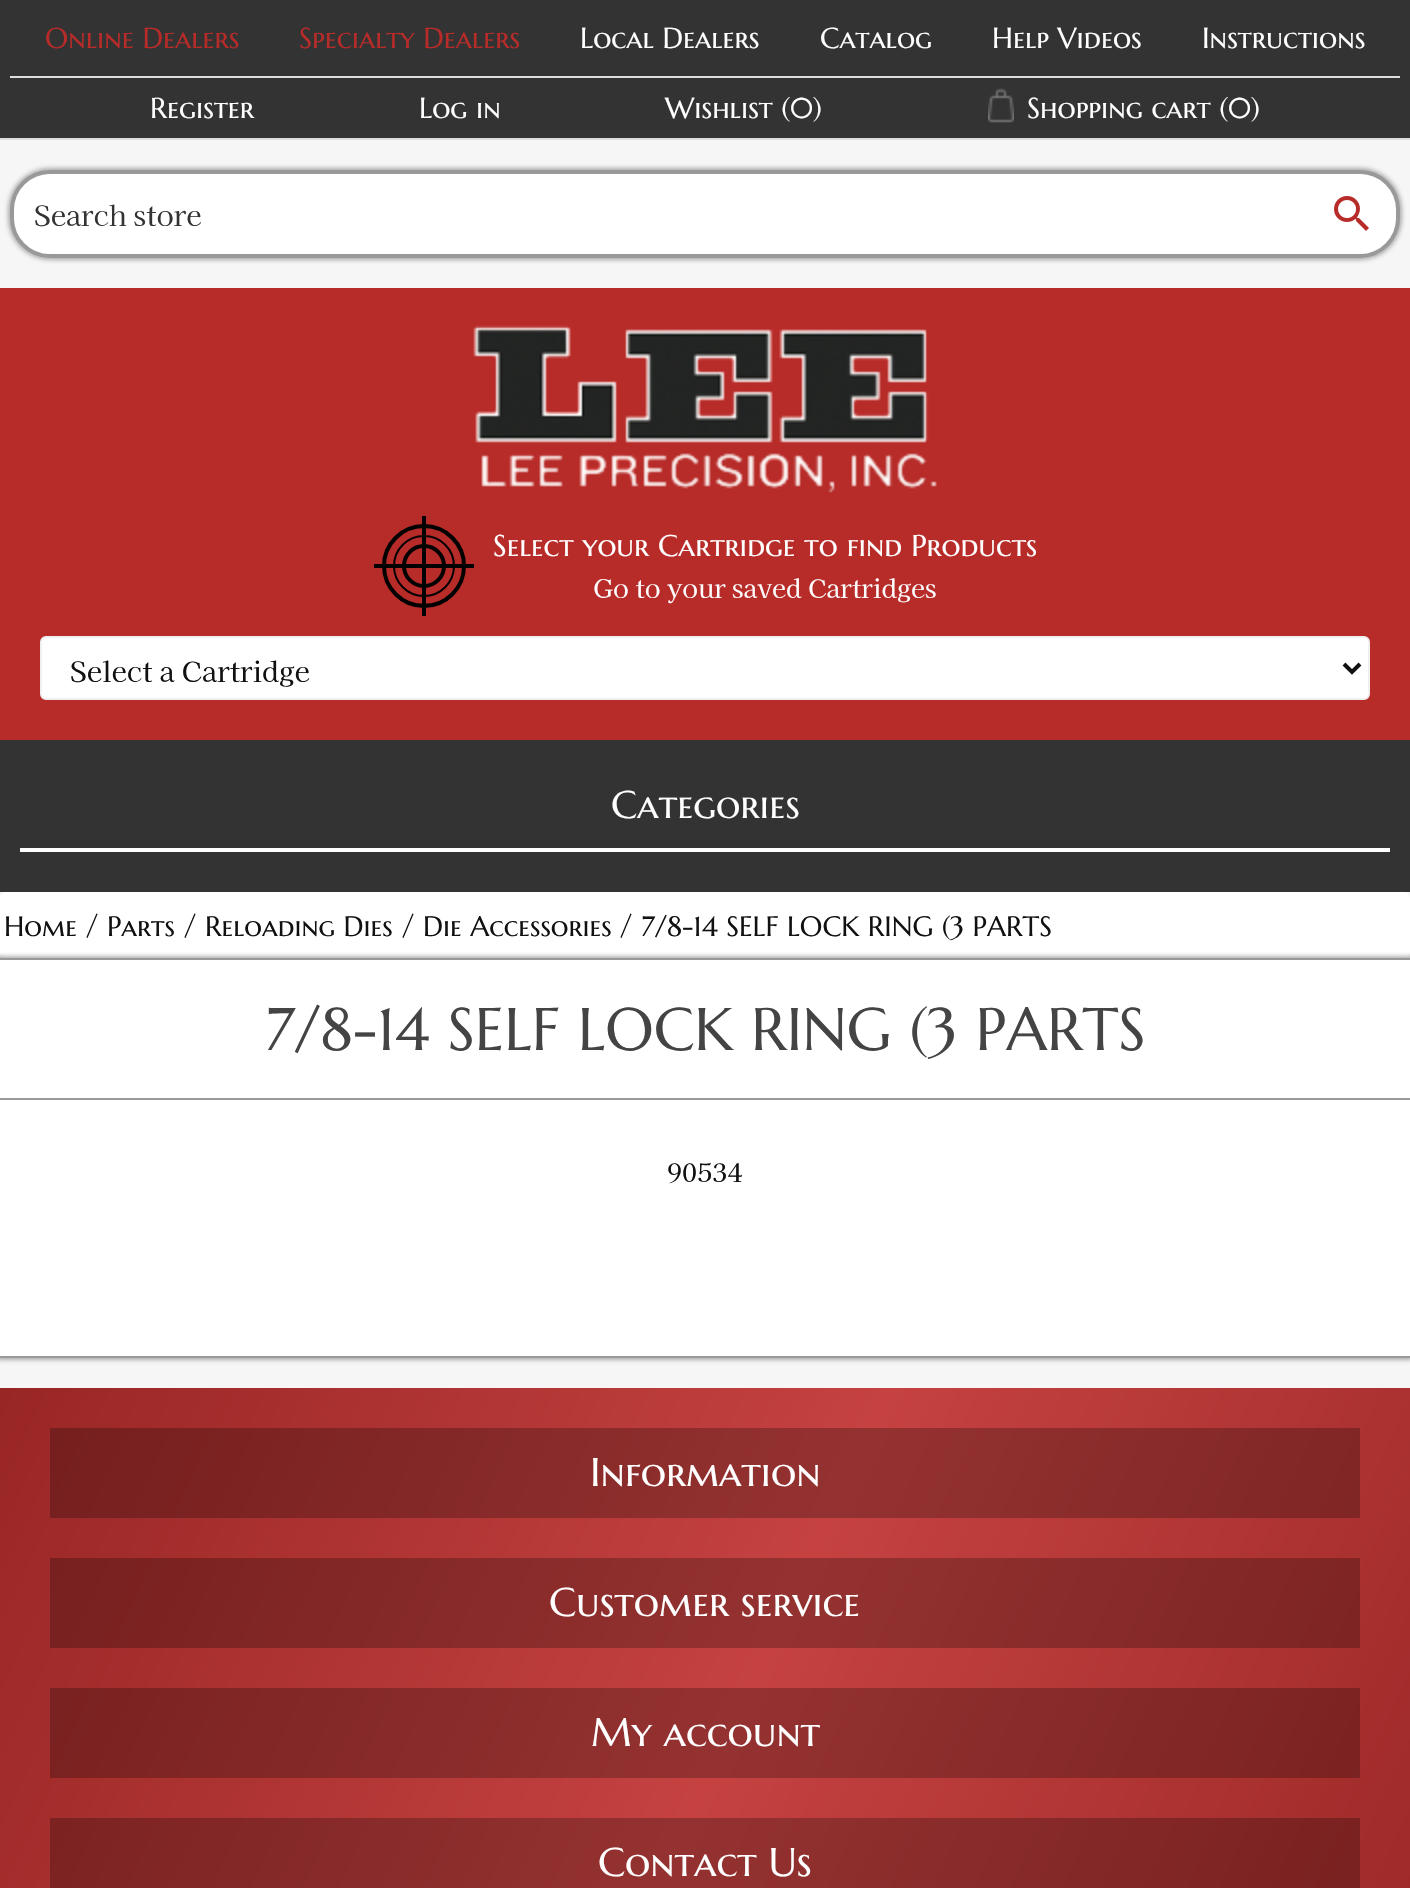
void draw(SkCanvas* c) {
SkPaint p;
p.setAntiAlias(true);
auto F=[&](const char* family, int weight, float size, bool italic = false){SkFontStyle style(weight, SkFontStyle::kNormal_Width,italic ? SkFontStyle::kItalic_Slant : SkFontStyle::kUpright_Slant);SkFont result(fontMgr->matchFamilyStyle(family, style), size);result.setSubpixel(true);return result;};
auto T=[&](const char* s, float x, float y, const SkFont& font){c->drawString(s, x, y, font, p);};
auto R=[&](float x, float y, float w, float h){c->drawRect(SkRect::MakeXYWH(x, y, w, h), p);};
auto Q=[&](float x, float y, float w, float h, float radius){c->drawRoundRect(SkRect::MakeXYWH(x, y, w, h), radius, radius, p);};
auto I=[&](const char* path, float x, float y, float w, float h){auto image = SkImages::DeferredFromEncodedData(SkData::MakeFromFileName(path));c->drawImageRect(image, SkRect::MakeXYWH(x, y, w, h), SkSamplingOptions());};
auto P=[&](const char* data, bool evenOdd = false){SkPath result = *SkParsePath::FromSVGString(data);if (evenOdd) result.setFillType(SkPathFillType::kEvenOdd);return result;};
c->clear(0xfff6f6f6);
p.setColor(0xffb72b29);
R(0,288,1410,452);
p.setColor(0xff333333);
R(0,0,1410,138);
p.setColor(0xffdddddd);
R(0,138,1410,2);
R(10,76,1390,2);
auto f1 = F("Marcellus SC",400,28.75);
p.setColor(0xffb72b29);
T("Online Dealers",45,48,f1);
T("Specialty Dealers",299,48,f1);
p.setColor(0xffffffff);
T("Local Dealers",580,48,f1);
T("Catalog",820,48,f1);
T("Help Videos",992,48,f1);
T("Instructions",1202,48,f1);
T("Register",150,118,f1);
T("Log in",419,118,f1);
T("Wishlist (0)",665,118,f1);
I("1.png",988,88,26,35);
T("Shopping cart (0)",1027,118,f1);
p.setColor(0x4d000000);
p.setMaskFilter(SkMaskFilter::MakeBlur(kNormal_SkBlurStyle, 2));
c->drawRoundRect(SkRect::MakeXYWH(8,168,1394,92),42,42,p);
p.setMaskFilter(nullptr);
p.setColor(0xffffffff);
c->drawRoundRect(SkRect::MakeXYWH(12,172,1386,84),38,38,p);
p.setStroke(true);
p.setStrokeWidth(4);
p.setColor(0xff999999);
c->drawRoundRect(SkRect::MakeXYWH(12,172,1386,84),38,38,p);
p.setStroke(false);
p.setColor(0xffffffff);
c->drawPath(P("M54 174h1254v80h-1254c-22 0-40-18-40-40c0-22 18-40 40-40z"),p);
auto f2 = F("Kaisei Decol",400,28);
p.setColor(0xff333333);
T("Search store",34,226,f2);
p.setColor(0xffffffff);
c->drawPath(P("M1306 174h50c22 0 40 18 40 40c0 22-18 40-40 40h-50z"),p);
I("2.png",1334,196,35,35);
I("3.png",473,325,464,168);
p.setStroke(true);
p.setColor(0xff000000);
c->drawCircle(424,566,40,p);
p.setStrokeWidth(2);
c->drawCircle(424,566,30,p);
p.setStrokeWidth(4);
c->drawCircle(424,566,20,p);
p.setStroke(false);
R(422,516,4,100);
R(374,564,100,4);
auto f3 = F("Marcellus SC",400,30);
p.setColor(0xffffffff);
T("Select your Cartridge to find Products",493,556,f3);
auto f4 = F("Kaisei Decol",400,25.6);
T("Go to your saved Cartridges",593,598,f4);
c->drawRoundRect(SkRect::MakeXYWH(41,637,1328,62),5,5,p);
p.setStroke(true);
p.setStrokeWidth(2);
p.setColor(0xfff0f0f0);
c->drawRoundRect(SkRect::MakeXYWH(41,637,1328,62),5,5,p);
p.setStrokeWidth(4);
p.setColor(0xff111111);
c->drawPath(P("M1344 664l8 8l8-8"),p);
p.setStroke(false);
T("Select a Cartridge",70,682,f2);
p.setColor(0xff333333);
R(0,740,1410,152);
p.setColor(0xffffffff);
R(20,848,1370,4);
auto f5 = F("Marcellus SC",400,38.5);
T("Categories",611,818,f5);
Q(0,892,1410,66,6);
auto f6 = F("Marcellus SC",400,28);
p.setColor(0xff111111);
T("Home",4,936,f6);
T("/",85,936,f2);
T("Parts",107,936,f6);
T("/",183,936,f2);
T("Reloading Dies",205,936,f6);
T("/",401,936,f2);
T("Die Accessories",423,936,f6);
T("/",619,936,f2);
T("7/8-14 SELF LOCK RING (3 PARTS",641,936,f6);
p.setColor(0x4d000000);
p.setMaskFilter(SkMaskFilter::MakeBlur(kNormal_SkBlurStyle, 2));
c->drawRect(SkRect::MakeXYWH(-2,956,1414,404),p);
p.setMaskFilter(nullptr);
p.setColor(0xffffffff);
R(0,960,1410,396);
p.setColor(0xff999999);
R(0,958,1410,2);
R(0,1356,1410,2);
R(0,1098,1410,2);
auto f7 = F("Marcellus SC",400,60);
p.setColor(0xff444444);
T("7/8-14 SELF LOCK RING (3 PARTS",265,1050,f7);
p.setColor(0xff111111);
T("90534",667,1182,f4);
{
const SkColor colors[] = {0xff982625,0xffc54241,0xff982625};
const float stops[] = {0,.5,1};
const SkPoint ends[] = {{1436,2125}, {-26,1443}};
p.setShader(SkGradientShader::MakeLinear(ends, colors, stops, 3, SkTileMode::kClamp));
p.setAlpha(255);
}
R(0,1388,1410,500);
{
const SkColor colors[] = {0xff721d1c,0xff943231,0xff721d1c};
const float stops[] = {0,.5,1};
const SkPoint ends[] = {{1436,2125}, {-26,1443}};
p.setShader(SkGradientShader::MakeLinear(ends, colors, stops, 3, SkTileMode::kClamp));
p.setAlpha(255);
}
R(50,1818,1310,70);
R(50,1688,1310,90);
R(50,1558,1310,90);
R(50,1428,1310,90);
auto f8 = F("Marcellus SC",400,40);
p.setShader(nullptr);
p.setColor(0xffffffff);
T("Information",590,1486,f8);
T("Customer service",549,1616,f8);
T("My account",591,1746,f8);
T("Contact Us",598,1876,f8);
}
